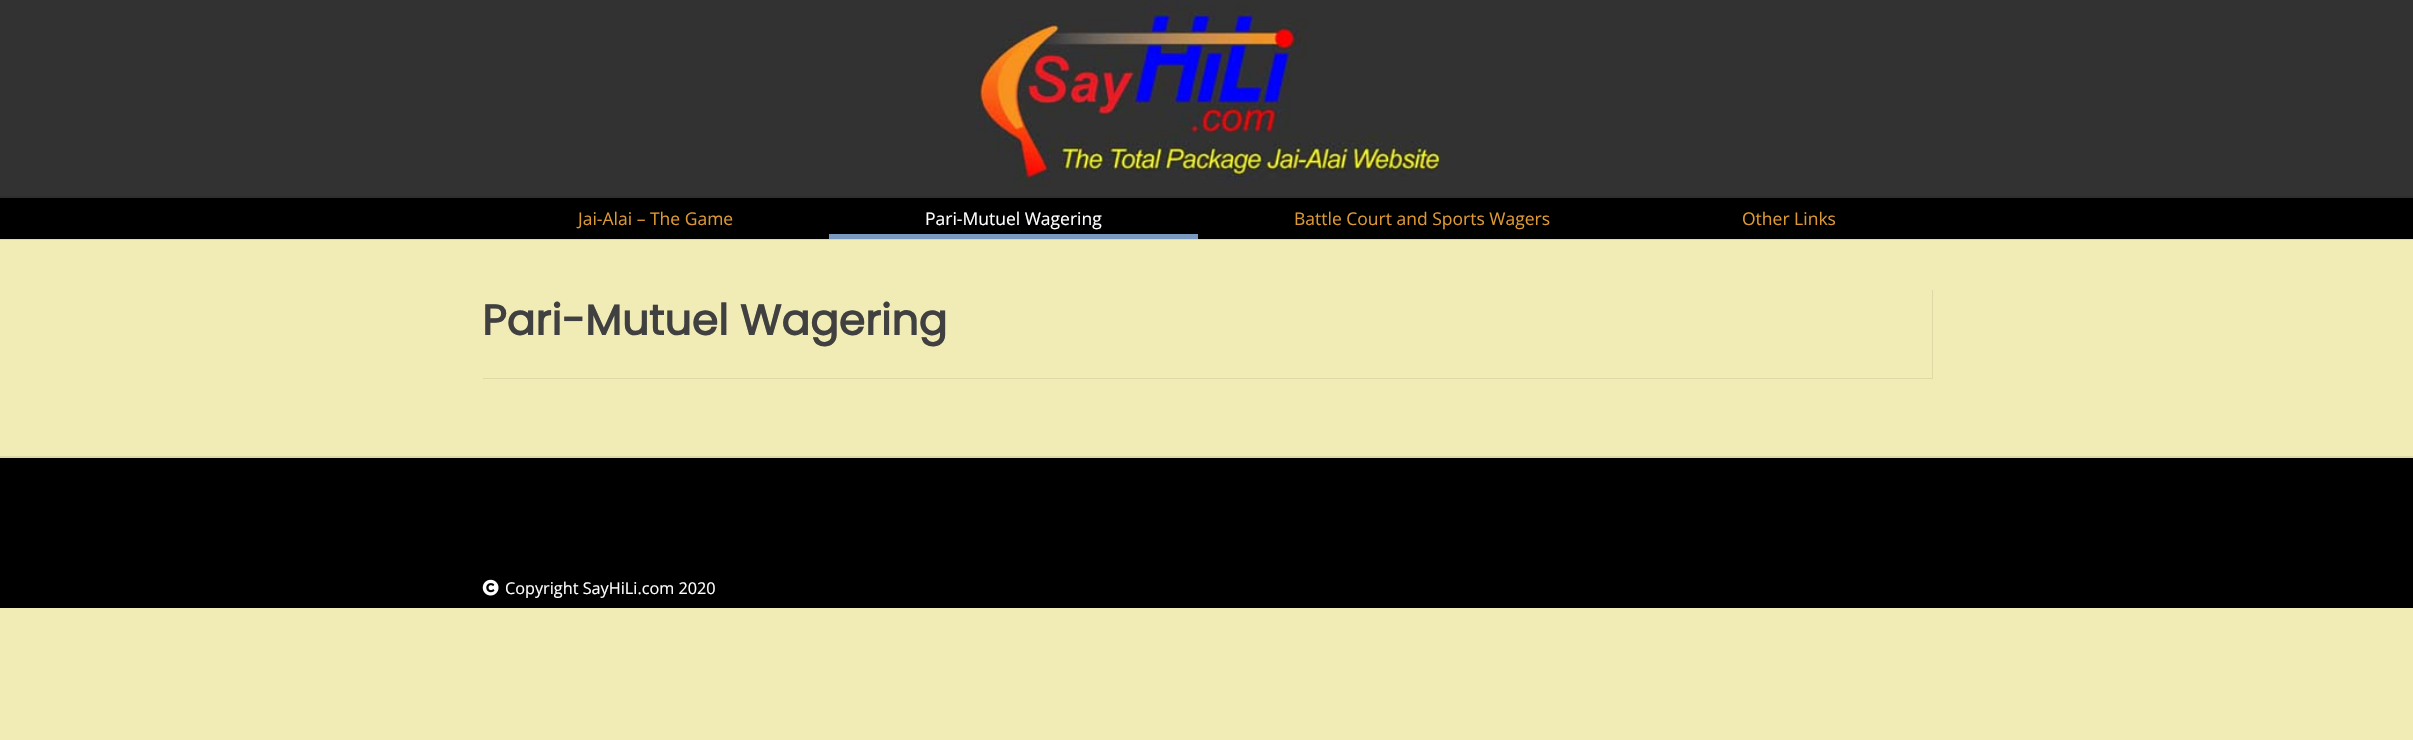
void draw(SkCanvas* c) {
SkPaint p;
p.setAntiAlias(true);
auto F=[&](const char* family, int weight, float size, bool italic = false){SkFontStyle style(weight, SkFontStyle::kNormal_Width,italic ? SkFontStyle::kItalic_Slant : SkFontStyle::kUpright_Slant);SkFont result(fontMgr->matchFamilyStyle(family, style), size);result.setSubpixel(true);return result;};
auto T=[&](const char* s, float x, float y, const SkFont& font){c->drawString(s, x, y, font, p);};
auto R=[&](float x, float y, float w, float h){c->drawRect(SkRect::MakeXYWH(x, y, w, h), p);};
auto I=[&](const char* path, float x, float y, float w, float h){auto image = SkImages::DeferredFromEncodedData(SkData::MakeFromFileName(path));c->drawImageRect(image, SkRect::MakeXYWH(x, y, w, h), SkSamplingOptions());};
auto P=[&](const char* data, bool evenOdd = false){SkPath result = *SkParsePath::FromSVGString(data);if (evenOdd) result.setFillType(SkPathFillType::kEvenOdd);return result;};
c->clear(0xfff1ecb6);
p.setColor(0xffded9a7);
c->drawPath(P("M0 239v1h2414v-239v238z"),p);
p.setColor(0xff323232);
R(0,0,2413,196);
I("1.png",976,2,465,186);
p.setColor(0xff2e2e2e);
c->drawPath(P("M0 196v2h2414v40v-42z"),p);
p.setColor(0xff000000);
R(0,198,2413,41);
auto f1 = F("Open Sans",400,17.5);
p.setColor(0xffdd9933);
T("Jai-Alai – The Game",578,225,f1);
p.setColor(0xff7999c1);
R(829,234,369,5);
p.setColor(0xffffffff);
T("Pari-Mutuel Wagering",925,225,f1);
p.setColor(0xffdd9933);
T("Battle Court and Sports Wagers",1294,225,f1);
T("Other Links",1742,225,f1);
p.setColor(0xffded9a7);
c->drawPath(P("M483 378v1h1450v-89h-1v88z"),p);
auto f2 = F("Poppins",700,42.5);
p.setColor(0xff404040);
T("Pari-Mutuel Wagering",482,335,f2);
p.setColor(0xffded9a7);
c->drawPath(P("M0 456v2h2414v148v-150z"),p);
p.setColor(0xff000000);
R(0,458,2413,150);
I("2.png",482,579,17,17);
auto f3 = F("Open Sans",400,16.25);
p.setColor(0xffffffff);
T("Copyright SayHiLi.com 2020",505,594,f3);
}
